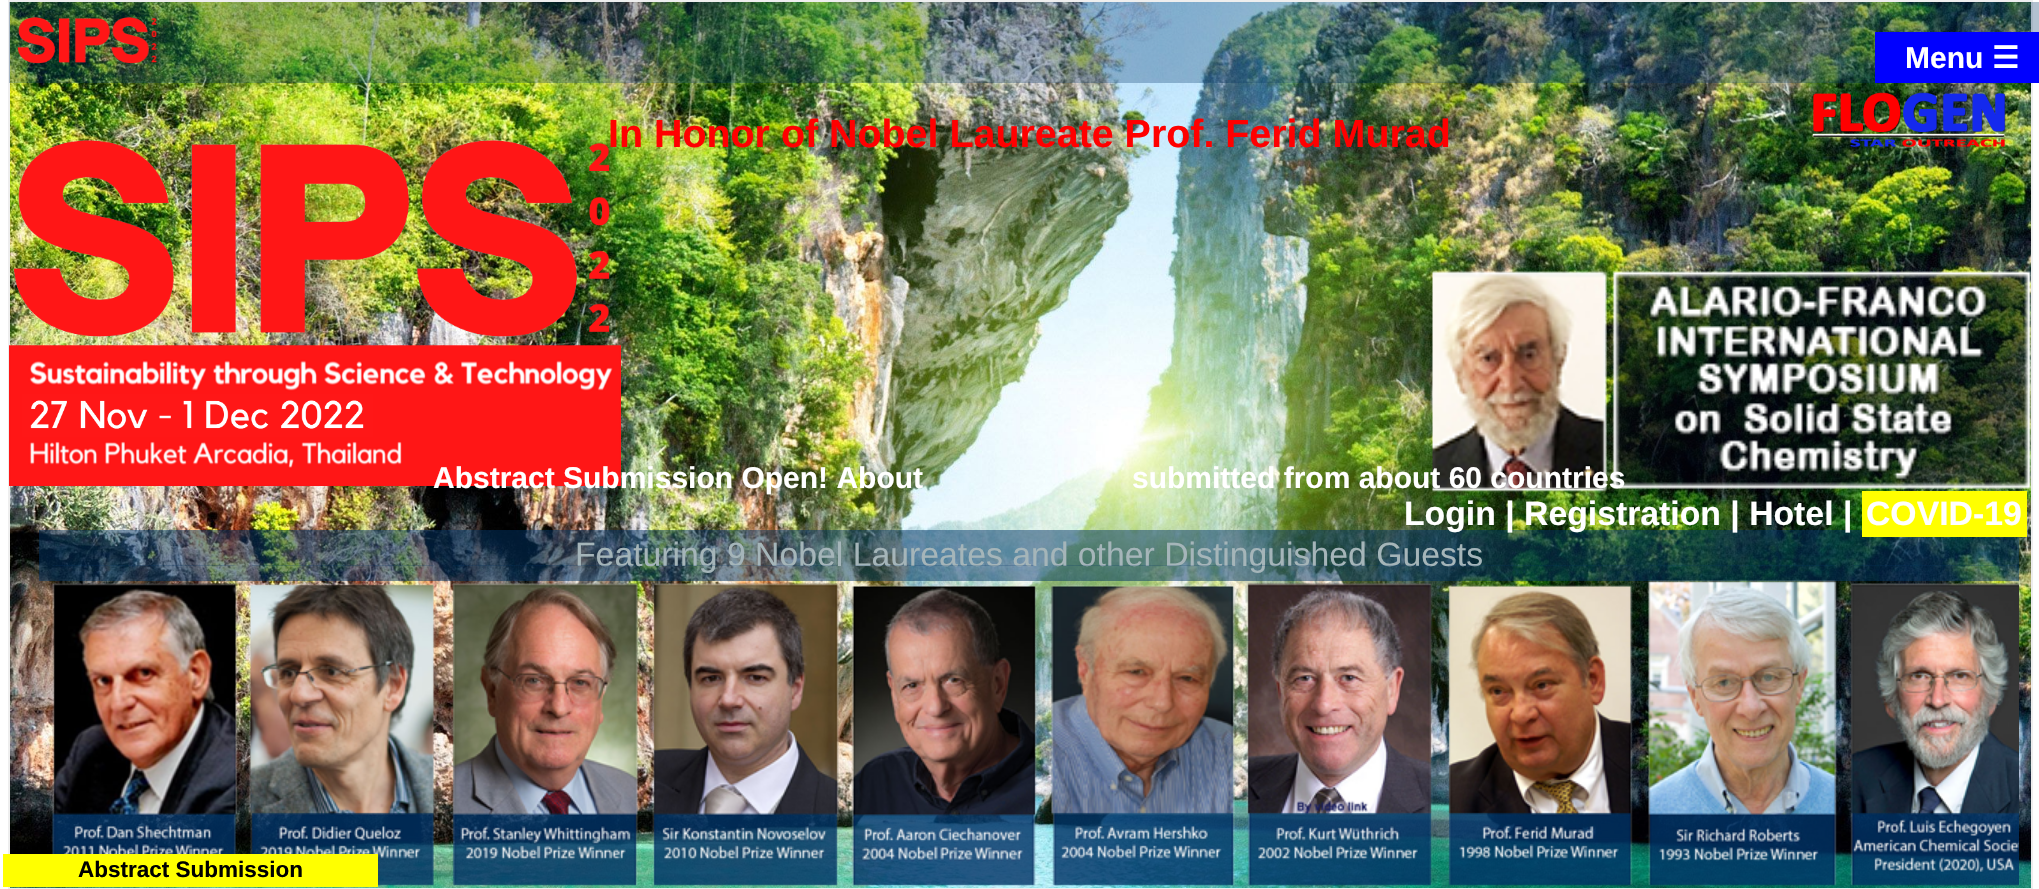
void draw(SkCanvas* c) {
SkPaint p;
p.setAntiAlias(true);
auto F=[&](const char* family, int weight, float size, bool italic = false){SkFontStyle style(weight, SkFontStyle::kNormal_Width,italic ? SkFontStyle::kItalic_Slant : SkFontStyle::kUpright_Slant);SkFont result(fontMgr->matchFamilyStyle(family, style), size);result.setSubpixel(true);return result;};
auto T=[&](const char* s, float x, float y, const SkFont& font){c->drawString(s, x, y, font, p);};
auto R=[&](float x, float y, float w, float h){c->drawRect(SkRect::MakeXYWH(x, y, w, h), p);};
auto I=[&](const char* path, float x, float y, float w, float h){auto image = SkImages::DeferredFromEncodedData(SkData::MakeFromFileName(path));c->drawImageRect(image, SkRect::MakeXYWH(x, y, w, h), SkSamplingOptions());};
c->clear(0xffffffff);
I("1.png",10,2,2021,886);
p.setStroke(true);
p.setStrokeWidth(2);
p.setColor(0xffeeeeee);
c->drawRect(SkRect::MakeXYWH(9,1,2023,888),p);
p.setStroke(false);
p.setColor(0x4d003264);
R(9,2,2030,81);
I("2.png",17,17,140,47);
p.setColor(0xff0000ff);
R(1875,32,164,51);
auto f1 = F("Liberation Sans",700,30);
p.setColor(0xffffffff);
T("Menu",1905,68,f1);
auto f2 = F("DejaVu Sans",700,30);
T("☰",1992,68,f2);
auto f3 = F("Liberation Sans",700,39.4);
p.setColor(0xffff0000);
T("In Honor of Nobel Laureate Prof. Ferid Murad",608,147,f3);
I("3.png",1812,92,194,55);
I("4.png",13,140,601,197);
I("5.png",9,345,612,141);
I("6.png",1432,271,599,221);
p.setColor(0xffffffff);
T("Abstract Submission Open! About",433,488,f1);
T("submitted from about 60 countries",1132,488,f1);
p.setColor(0x80003366);
R(39,530,1980,51);
auto f4 = F("Liberation Sans",400,33.75);
p.setColor(0xffa5b5b9);
T("Featuring 9 Nobel Laureates and other Distinguished Guests",575,566,f4);
I("7.png",52,565,1967,321);
auto f5 = F("Liberation Sans",700,33.75);
p.setColor(0xffffffff);
T("Login | Registration | Hotel |",1404,525,f5);
p.setColor(0xffffff00);
R(1862,491,165,46);
p.setColor(0xffffffff);
T("COVID-19",1866,525,f5);
p.setColor(0xffffff00);
R(3,854,375,33);
auto f6 = F("Liberation Sans",700,22.5);
p.setColor(0xff000000);
T("Abstract Submission",78,877,f6);
}
